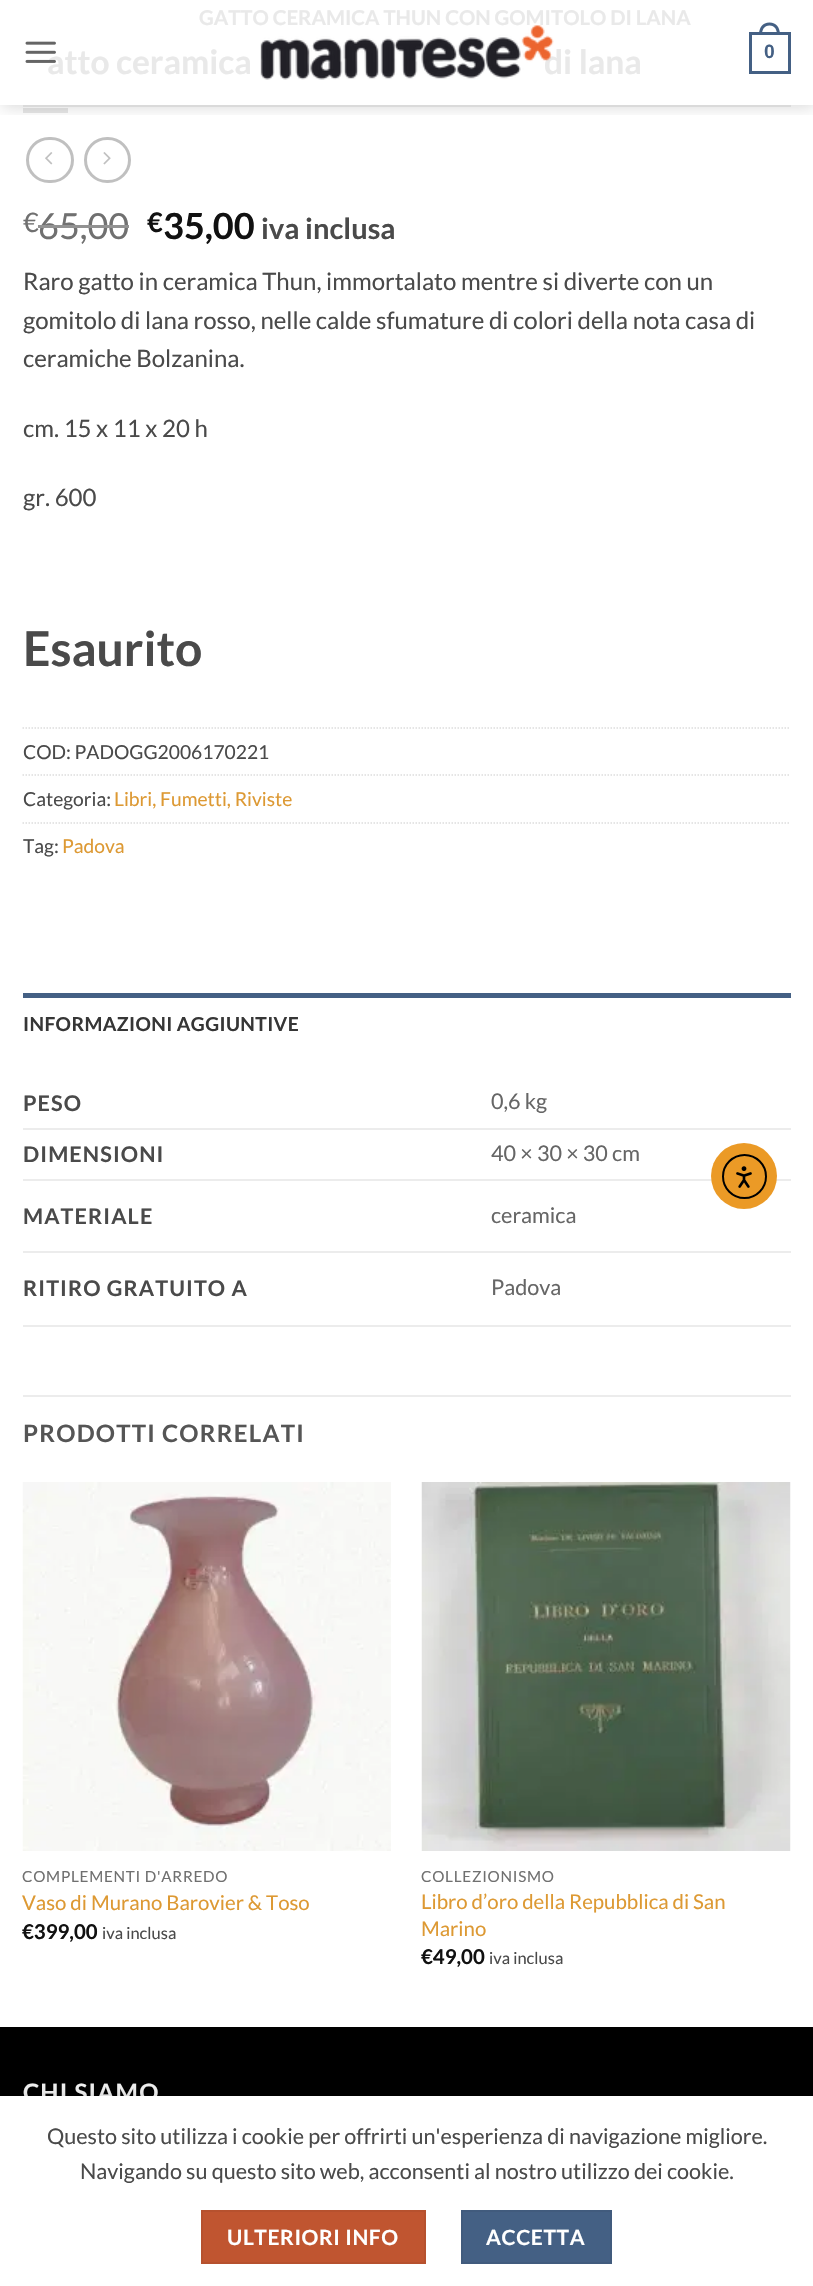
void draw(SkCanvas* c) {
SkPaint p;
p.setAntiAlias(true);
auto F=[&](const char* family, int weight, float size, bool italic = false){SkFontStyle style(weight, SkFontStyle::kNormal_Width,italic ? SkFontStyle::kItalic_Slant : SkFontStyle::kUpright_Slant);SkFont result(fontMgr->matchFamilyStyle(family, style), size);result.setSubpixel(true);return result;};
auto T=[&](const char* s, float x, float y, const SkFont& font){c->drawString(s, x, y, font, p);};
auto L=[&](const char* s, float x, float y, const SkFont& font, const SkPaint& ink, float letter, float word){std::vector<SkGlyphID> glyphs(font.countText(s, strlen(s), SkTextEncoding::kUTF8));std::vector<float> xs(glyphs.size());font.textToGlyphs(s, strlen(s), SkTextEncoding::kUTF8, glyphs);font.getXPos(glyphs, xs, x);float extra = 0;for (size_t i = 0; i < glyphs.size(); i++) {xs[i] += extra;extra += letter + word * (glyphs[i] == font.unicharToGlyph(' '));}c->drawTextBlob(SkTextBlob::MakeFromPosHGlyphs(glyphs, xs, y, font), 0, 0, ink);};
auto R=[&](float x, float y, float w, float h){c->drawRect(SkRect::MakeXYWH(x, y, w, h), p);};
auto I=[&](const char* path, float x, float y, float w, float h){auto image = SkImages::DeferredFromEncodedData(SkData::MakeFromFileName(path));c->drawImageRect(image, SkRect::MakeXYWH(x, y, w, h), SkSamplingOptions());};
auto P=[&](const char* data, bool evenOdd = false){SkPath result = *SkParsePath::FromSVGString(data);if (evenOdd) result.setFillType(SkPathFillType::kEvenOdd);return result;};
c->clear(0xffffffff);
auto f1 = F("Lato",700,20.4);
p.setColor(0xffe9e9e9);
T("GATTO CERAMICA THUN CON GOMITOLO DI LANA",199,25,f1);
auto f2 = F("Lato",700,33.5);
T("atto ceramica",47,74,f2);
T("di lana",544,74,f2);
p.setColor(0xffe6e6e6);
R(23,108,45,5);
p.setStroke(true);
p.setStrokeWidth(3);
p.setColor(0xffc0c0c0);
c->drawRoundRect(SkRect::MakeXYWH(27.5,138.5,45,43),21.5,21.5,p);
I("1.png",45,152,8,13);
c->drawRoundRect(SkRect::MakeXYWH(85.5,138.5,44,43),21.5,21.5,p);
I("2.png",103,152,8,13);
auto f3 = F("Lato",400,27);
p.setStroke(false);
p.setColor(0xff707070);
T("€",23,232,f3);
auto f4 = F("Lato",400,36);
T("65,00",38,239,f4);
p.setColor(0xff929292);
R(38,225,91,3);
auto f5 = F("Lato",700,27);
p.setColor(0xff111111);
T("€",147,232,f5);
auto f6 = F("Lato",700,36);
T("35,00",163,239,f6);
auto f7 = F("Lato",700,29);
p.setColor(0xff4a4a4a);
T("iva inclusa",261,239,f7);
auto f8 = F("Lato",400,24);
T("Raro gatto in ceramica Thun, immortalato mentre si diverte con un",23,290,f8);
T("gomitolo di lana rosso, nelle calde sfumature di colori della nota casa di",23,329,f8);
T("ceramiche Bolzanina.",23,367,f8);
T("cm. 15 x 11 x 20 h",23,437,f8);
T("gr. 600",23,506,f8);
auto f9 = F("Lato",700,48);
T("Esaurito",23,666,f9);
p.setStroke(true);
p.setStrokeWidth(1.5);
p.setColor(0xffdddddd);
p.setPathEffect(SkDashPathEffect::Make({{1.5f,1.5f}}, 0));
c->drawPath(P("M22.5 728h768"),p);
p.setPathEffect(nullptr);
auto f10 = F("Lato",400,19.25);
p.setStroke(false);
p.setColor(0xff4a4a4a);
T("COD: PADOGG2006170221",23,759,f10);
p.setStroke(true);
p.setColor(0xffdddddd);
p.setPathEffect(SkDashPathEffect::Make({{1.5f,1.5f}}, 0));
c->drawPath(P("M22.5 775h768"),p);
p.setPathEffect(nullptr);
p.setStroke(false);
p.setColor(0xff4a4a4a);
T("Categoria:",23,806,f10);
p.setColor(0xffdd9933);
T("Libri, Fumetti, Riviste",114,806,f10);
p.setStroke(true);
p.setColor(0xffdddddd);
p.setPathEffect(SkDashPathEffect::Make({{1.5f,1.5f}}, 0));
c->drawPath(P("M22.5 823h768"),p);
p.setPathEffect(nullptr);
p.setStroke(false);
p.setColor(0xff4a4a4a);
T("Tag:",23,853,f10);
p.setColor(0xffdd9933);
T("Padova",62,853,f10);
p.setColor(0xff446084);
R(23,993,768,5);
auto f11 = F("Lato",700,19.25);
p.setColor(0xff363636);
L("INFORMAZIONI AGGIUNTIVE",23,1031,f11,p,.4,0);
p.setColor(0xffececec);
R(23,1128,768,2);
auto f12 = F("Lato",700,21.6);
p.setColor(0xff4a4a4a);
L("PESO",23,1111,f12,p,1.1,0);
auto f13 = F("Lato",400,21.6);
p.setColor(0xff666666);
T("0,6 kg",491,1109,f13);
p.setColor(0xffececec);
R(23,1179,768,2);
p.setColor(0xff4a4a4a);
L("DIMENSIONI",23,1162,f12,p,1.1,0);
p.setColor(0xff666666);
T("40 × 30 × 30 cm",491,1161,f13);
p.setColor(0xffececec);
R(23,1251,768,2);
p.setColor(0xff4a4a4a);
L("MATERIALE",23,1224,f12,p,1.1,0);
p.setColor(0xff666666);
T("ceramica",491,1223,f13);
p.setColor(0xffececec);
R(23,1325,768,2);
p.setColor(0xff4a4a4a);
L("RITIRO GRATUITO A",23,1296,f12,p,1.1,0);
p.setColor(0xff666666);
T("Padova",491,1295,f13);
p.setColor(0xffececec);
R(23,1395,768,2);
auto f14 = F("Lato",700,24);
p.setColor(0xff555555);
L("PRODOTTI CORRELATI",23,1442,f14,p,1.25,0);
I("3.png",22,1482,369,369);
auto f15 = F("Lato",400,15.25);
p.setColor(0xff707070);
L("COMPLEMENTI D'ARREDO",22,1882,f15,p,.75,0);
auto f16 = F("Lato",400,20.4);
p.setColor(0xffdd9933);
T("Vaso di Murano Barovier & Toso",22,1910,f16);
p.setColor(0xff111111);
T("€399,00",22,1939,f1);
auto f17 = F("Lato",400,16.5);
p.setColor(0xff4a4a4a);
T("iva inclusa",102,1939,f17);
I("4.png",421,1482,370,369);
p.setColor(0xff707070);
L("COLLEZIONISMO",421,1882,f15,p,.75,0);
p.setColor(0xffdd9933);
T("Libro d’oro della Repubblica di San",421,1909,f16);
T("Marino",421,1936,f16);
p.setColor(0xff111111);
T("€49,00",421,1964,f1);
p.setColor(0xff4a4a4a);
T("iva inclusa",489,1964,f17);
c->save();
c->clipRect(SkRect::MakeXYWH(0,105,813,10));
p.setColor(0x26000000);
p.setMaskFilter(SkMaskFilter::MakeBlur(kNormal_SkBlurStyle, 7.5));
c->drawRect(SkRect::MakeXYWH(2,2,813,105),p);
p.setMaskFilter(nullptr);
c->restore();
I("5.png",25,41,31,22);
I("6.png",260,25,294,55);
p.setStroke(true);
p.setStrokeWidth(3);
p.setColor(0xff446084);
c->drawRect(SkRect::MakeXYWH(750.5,33.5,39,39),p);
p.setStroke(false);
c->drawPath(P("M769.5 22.5c7 0 10.5 5.5 10.5 12h-21c0-6.5 3.5-12 10.5-12zm0 3c5.5 0 7.5 4.5 7.5 9h-15c0-4.5 2-9 7.5-9z",true),p);
auto f18 = F("Liberation Sans",700,19.25);
T("0",764,58,f18);
p.setColor(0xffdadada);
R(23,105,768,2);
p.setColor(0xff000000);
R(0,2027,813,69);
p.setColor(0xfff1f1f1);
L("CHI SIAMO",23,2101,f14,p,1.25,0);
p.setColor(0xffeb9a26);
c->drawCircle(744,1176,33,p);
p.setStroke(true);
p.setStrokeWidth(2);
p.setColor(0xff000000);
c->drawCircle(744.5,1176.5,21.5,p);
I("7.png",736,1166,16,22);
p.setStroke(false);
p.setColor(0x24000000);
p.setMaskFilter(SkMaskFilter::MakeBlur(kNormal_SkBlurStyle, 7));
c->drawRect(SkRect::MakeXYWH(0,2096,813,190),p);
p.setMaskFilter(nullptr);
p.setColor(0xffffffff);
R(0,2096,813,190);
p.setColor(0xff4a4a4a);
T("Questo sito utilizza i cookie per offrirti un'esperienza di navigazione migliore.",47,2144,f13);
T("Navigando su questo sito web, acconsenti al nostro utilizzo dei cookie.",80,2179,f13);
p.setColor(0xffc05530);
c->drawRect(SkRect::MakeXYWH(202,2211,223,52),p);
p.setStroke(true);
p.setColor(0xffb6512e);
c->drawRect(SkRect::MakeXYWH(202,2211,223,52),p);
auto f19 = F("Lato",700,21);
p.setStroke(false);
p.setColor(0xffffffff);
L("ULTERIORI INFO",227,2245,f19,p,.6,0);
p.setColor(0xff446084);
c->drawRect(SkRect::MakeXYWH(462,2211,149,52),p);
p.setStroke(true);
p.setColor(0xff415b7d);
c->drawRect(SkRect::MakeXYWH(462,2211,149,52),p);
p.setStroke(false);
p.setColor(0xffffffff);
L("ACCETTA",486,2245,f19,p,.6,0);
}
